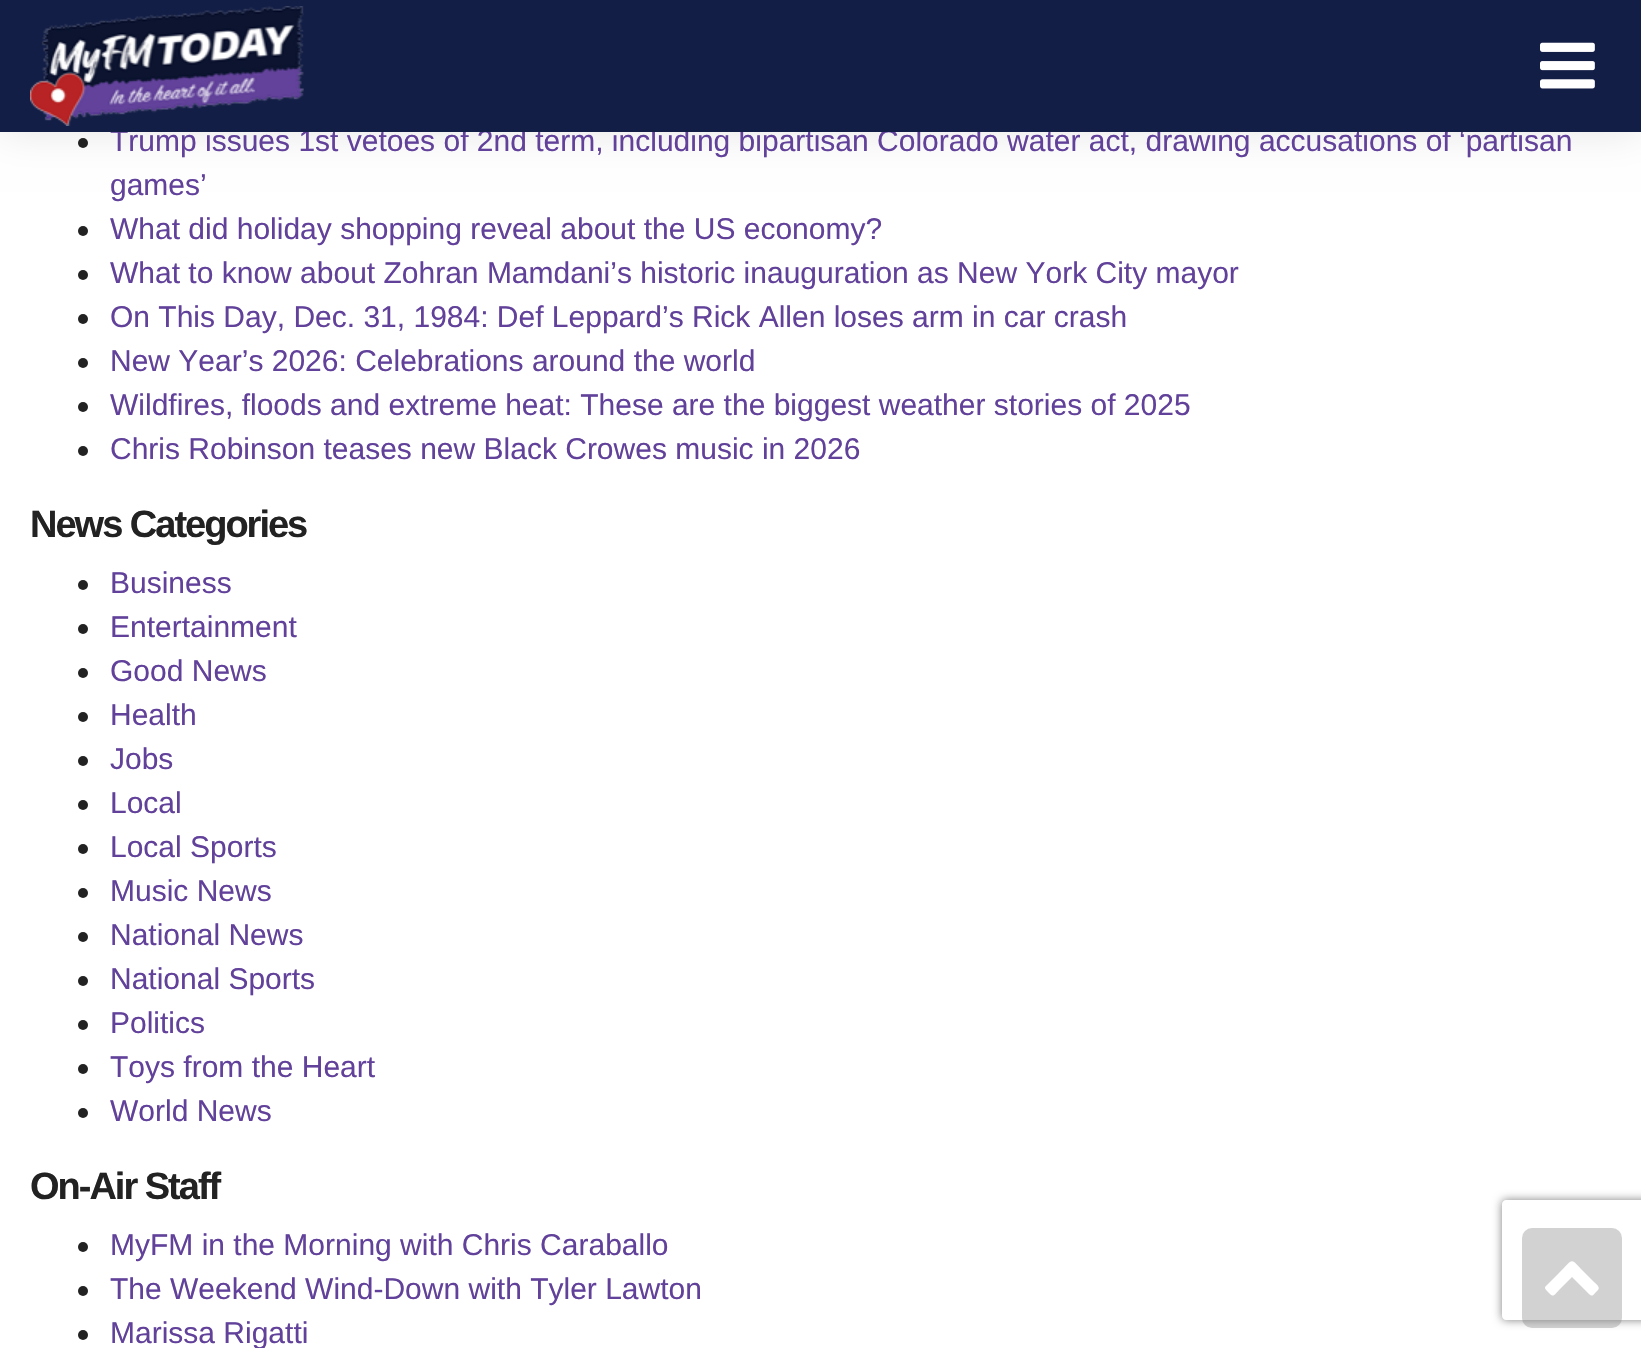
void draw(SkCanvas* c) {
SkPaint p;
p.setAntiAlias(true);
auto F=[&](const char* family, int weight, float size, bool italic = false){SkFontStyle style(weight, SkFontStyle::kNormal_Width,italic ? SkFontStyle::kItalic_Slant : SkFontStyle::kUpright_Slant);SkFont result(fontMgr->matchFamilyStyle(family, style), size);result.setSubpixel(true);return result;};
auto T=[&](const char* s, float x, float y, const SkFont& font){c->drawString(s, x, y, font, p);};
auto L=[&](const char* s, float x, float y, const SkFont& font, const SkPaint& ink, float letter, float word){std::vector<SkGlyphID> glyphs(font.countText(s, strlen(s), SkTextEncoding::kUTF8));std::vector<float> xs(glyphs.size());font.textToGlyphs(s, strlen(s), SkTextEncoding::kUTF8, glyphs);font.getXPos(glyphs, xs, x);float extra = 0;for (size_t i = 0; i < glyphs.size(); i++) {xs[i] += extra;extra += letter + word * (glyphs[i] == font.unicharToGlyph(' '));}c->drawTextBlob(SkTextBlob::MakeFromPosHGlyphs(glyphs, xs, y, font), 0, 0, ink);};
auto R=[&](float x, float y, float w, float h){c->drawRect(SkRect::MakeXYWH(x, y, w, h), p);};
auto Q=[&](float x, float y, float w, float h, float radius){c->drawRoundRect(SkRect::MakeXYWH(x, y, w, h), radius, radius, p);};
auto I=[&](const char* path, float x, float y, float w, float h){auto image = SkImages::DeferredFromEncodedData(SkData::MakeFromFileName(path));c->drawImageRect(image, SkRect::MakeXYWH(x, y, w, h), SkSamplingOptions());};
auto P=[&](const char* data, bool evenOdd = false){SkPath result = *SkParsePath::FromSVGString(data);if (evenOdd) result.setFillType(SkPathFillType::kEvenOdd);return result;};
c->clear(0xffffffff);
p.setColor(0xff222222);
c->drawCircle(83,143,5,p);
p.setColor(0x1a000000);
p.setMaskFilter(SkMaskFilter::MakeBlur(kNormal_SkBlurStyle, 20));
c->drawRect(SkRect::MakeXYWH(0,0,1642,132),p);
p.setMaskFilter(nullptr);
auto f1 = F("Liberation Sans",400,30);
p.setColor(0xff61419a);
T("Trump issues 1st vetoes of 2nd term, including bipartisan Colorado water act, drawing accusations of ‘partisan",110,151,f1);
p.setColor(0xff131e46);
R(0,0,1641,132);
I("1.png",30,6,274,120);
I("2.png",1540,42,55,47);
p.setColor(0xff61419a);
T("games’",110,195,f1);
p.setColor(0xff222222);
c->drawCircle(83,231,5,p);
p.setColor(0xff61419a);
T("What did holiday shopping reveal about the US economy?",110,239,f1);
p.setColor(0xff222222);
c->drawCircle(83,275,5,p);
p.setColor(0xff61419a);
T("What to know about Zohran Mamdani’s historic inauguration as New York City mayor",110,283,f1);
p.setColor(0xff222222);
c->drawCircle(83,319,5,p);
p.setColor(0xff61419a);
T("On This Day, Dec. 31, 1984: Def Leppard’s Rick Allen loses arm in car crash",110,327,f1);
p.setColor(0xff222222);
c->drawCircle(83,363,5,p);
p.setColor(0xff61419a);
T("New Year’s 2026: Celebrations around the world",110,371,f1);
p.setColor(0xff222222);
c->drawCircle(83,407,5,p);
p.setColor(0xff61419a);
T("Wildfires, floods and extreme heat: These are the biggest weather stories of 2025",110,415,f1);
p.setColor(0xff222222);
c->drawCircle(83,451,5,p);
p.setColor(0xff61419a);
T("Chris Robinson teases new Black Crowes music in 2026",110,459,f1);
auto f2 = F("Liberation Sans",700,38);
p.setColor(0xff222222);
L("News Categories",30,537,f2,p,-2,0);
c->drawCircle(83,585,5,p);
p.setColor(0xff61419a);
T("Business",110,593,f1);
p.setColor(0xff222222);
c->drawCircle(83,629,5,p);
p.setColor(0xff61419a);
T("Entertainment",110,637,f1);
p.setColor(0xff222222);
c->drawCircle(83,673,5,p);
p.setColor(0xff61419a);
T("Good News",110,681,f1);
p.setColor(0xff222222);
c->drawCircle(83,717,5,p);
p.setColor(0xff61419a);
T("Health",110,725,f1);
p.setColor(0xff222222);
c->drawCircle(83,761,5,p);
p.setColor(0xff61419a);
T("Jobs",110,769,f1);
p.setColor(0xff222222);
c->drawCircle(83,805,5,p);
p.setColor(0xff61419a);
T("Local",110,813,f1);
p.setColor(0xff222222);
c->drawCircle(83,849,5,p);
p.setColor(0xff61419a);
T("Local Sports",110,857,f1);
p.setColor(0xff222222);
c->drawCircle(83,893,5,p);
p.setColor(0xff61419a);
T("Music News",110,901,f1);
p.setColor(0xff222222);
c->drawCircle(83,937,5,p);
p.setColor(0xff61419a);
T("National News",110,945,f1);
p.setColor(0xff222222);
c->drawCircle(83,981,5,p);
p.setColor(0xff61419a);
T("National Sports",110,989,f1);
p.setColor(0xff222222);
c->drawCircle(83,1025,5,p);
p.setColor(0xff61419a);
T("Politics",110,1033,f1);
p.setColor(0xff222222);
c->drawCircle(83,1069,5,p);
p.setColor(0xff61419a);
T("Toys from the Heart",110,1077,f1);
p.setColor(0xff222222);
c->drawCircle(83,1113,5,p);
p.setColor(0xff61419a);
T("World News",110,1121,f1);
p.setColor(0xff222222);
L("On-Air Staff",30,1199,f2,p,-2,0);
c->drawCircle(83,1247,5,p);
p.setColor(0xff61419a);
T("MyFM in the Morning with Chris Caraballo",110,1255,f1);
p.setColor(0xff222222);
c->drawCircle(83,1291,5,p);
p.setColor(0xff61419a);
T("The Weekend Wind-Down with Tyler Lawton",110,1299,f1);
p.setColor(0xff222222);
c->drawCircle(83,1335,5,p);
p.setColor(0xff61419a);
T("Marissa Rigatti",110,1343,f1);
p.setColor(0xffd2d2d2);
Q(1522,1228,100,100,10);
p.setColor(0xffffffff);
c->drawPath(P("M1598 1290c-6 6-5 8-11 2l-15-15l-12 12c-6 6-6 9-11 4c-6-6-5-5 1-11l8-8c17-17 11-17 28 0l8 8c1 1 7 5 4 8z"),p);
c->save();
c->clipPath(P("M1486 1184h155v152h-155zm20 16h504c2 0 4 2 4 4v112c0 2-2 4-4 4h-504c-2 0-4-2-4-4v-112c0-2 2-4 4-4z",true),true);
p.setColor(0xff808080);
p.setMaskFilter(SkMaskFilter::MakeBlur(kNormal_SkBlurStyle, 5));
c->drawRoundRect(SkRect::MakeXYWH(1502,1200,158,120),4,4,p);
p.setMaskFilter(nullptr);
c->restore();
}
